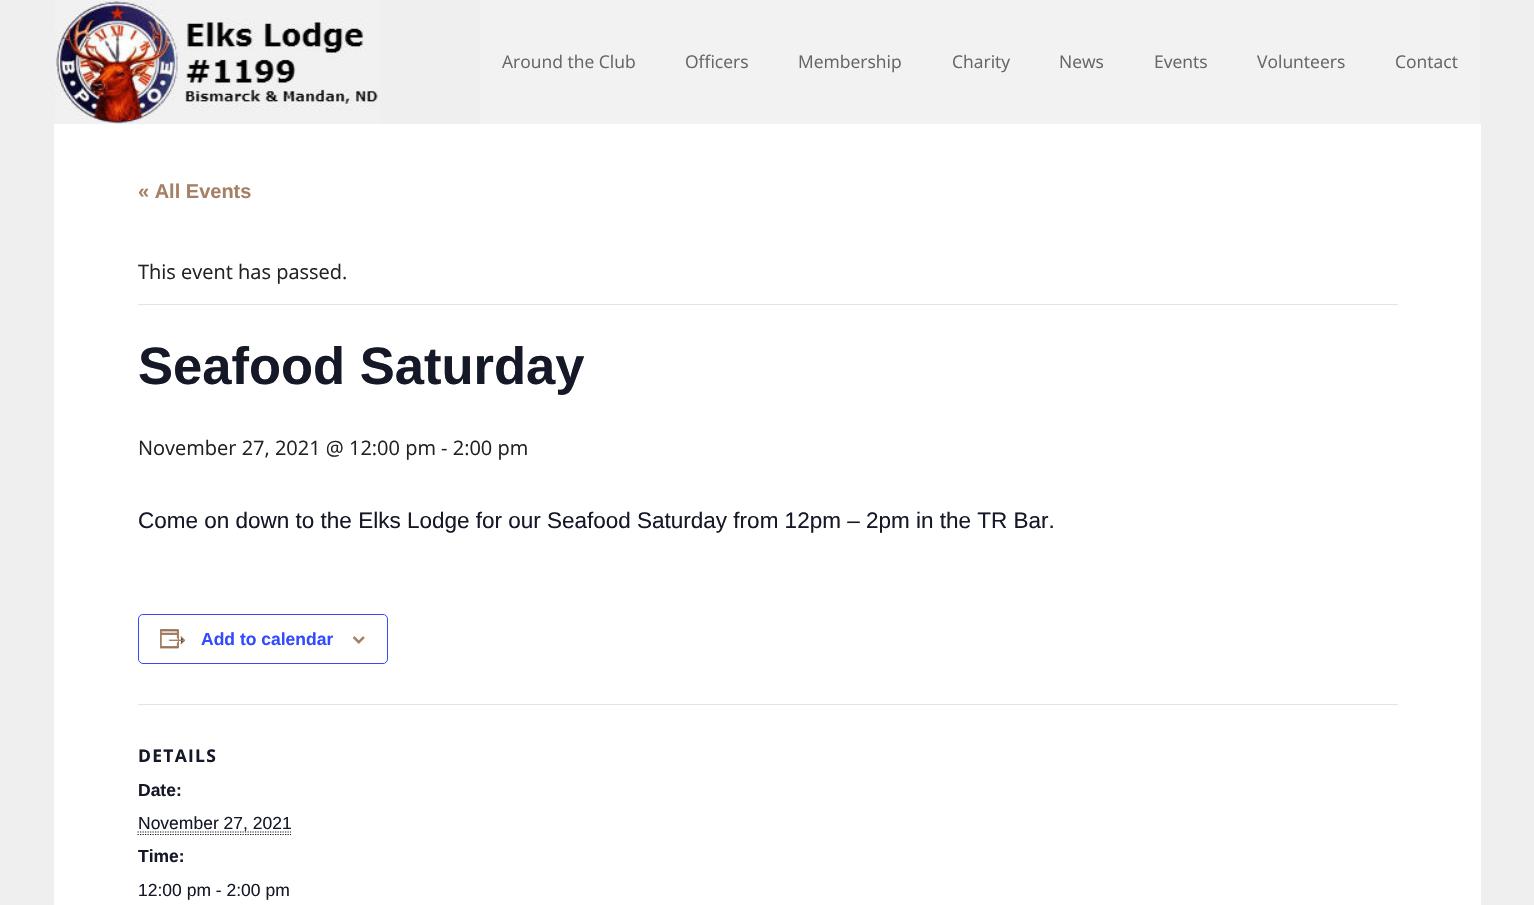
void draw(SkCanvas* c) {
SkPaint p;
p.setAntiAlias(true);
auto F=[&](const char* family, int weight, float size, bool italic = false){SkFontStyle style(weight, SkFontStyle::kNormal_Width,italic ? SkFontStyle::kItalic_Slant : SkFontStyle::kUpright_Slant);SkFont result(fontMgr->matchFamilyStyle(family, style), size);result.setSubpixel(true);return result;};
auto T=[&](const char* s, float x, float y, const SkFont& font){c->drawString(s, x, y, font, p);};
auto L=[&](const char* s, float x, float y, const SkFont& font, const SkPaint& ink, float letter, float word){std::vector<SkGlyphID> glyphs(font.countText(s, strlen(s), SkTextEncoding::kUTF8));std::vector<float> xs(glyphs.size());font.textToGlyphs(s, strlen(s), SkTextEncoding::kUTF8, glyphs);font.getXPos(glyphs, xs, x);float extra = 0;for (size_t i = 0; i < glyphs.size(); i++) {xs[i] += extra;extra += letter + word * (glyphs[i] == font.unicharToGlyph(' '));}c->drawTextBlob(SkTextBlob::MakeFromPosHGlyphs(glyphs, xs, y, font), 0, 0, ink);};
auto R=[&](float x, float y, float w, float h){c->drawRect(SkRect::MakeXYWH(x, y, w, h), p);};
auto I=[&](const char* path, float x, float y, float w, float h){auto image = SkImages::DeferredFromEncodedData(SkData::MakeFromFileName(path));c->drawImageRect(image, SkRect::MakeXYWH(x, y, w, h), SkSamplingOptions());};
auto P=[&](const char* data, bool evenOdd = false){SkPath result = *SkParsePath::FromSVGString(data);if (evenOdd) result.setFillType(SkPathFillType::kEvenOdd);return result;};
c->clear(0xffefefef);
I("1.png",55,0,325,124);
p.setColor(0xfff2f2f2);
R(480,0,1000,124);
auto f1 = F("Open Sans",400,17.5);
p.setColor(0xff666666);
T("Around the Club",502,68,f1);
T("Officers",685,68,f1);
T("Membership",798,68,f1);
T("Charity",952,68,f1);
T("News",1059,68,f1);
T("Events",1154,68,f1);
T("Volunteers",1257,68,f1);
T("Contact",1395,68,f1);
p.setStroke(true);
p.setStrokeWidth(1);
p.setColor(0xffffffff);
c->drawRect(SkRect::MakeXYWH(54.5,124.5,1426,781),p);
p.setStroke(false);
R(55,125,1425,780);
auto f2 = F("Liberation Sans",700,20);
p.setColor(0xffa68064);
T("« All Events",138,198,f2);
p.setColor(0xffe4e4e4);
R(138,304,1260,1);
auto f3 = F("Open Sans",400,20);
p.setColor(0xff222222);
T("This event has passed.",138,279,f3);
auto f4 = F("Liberation Sans",700,52.5);
p.setColor(0xff141827);
T("Seafood Saturday",138,384,f4);
p.setColor(0xff222222);
T("November 27, 2021 @ 12:00 pm - 2:00 pm",138,455,f3);
auto f5 = F("Liberation Sans",400,22.5);
p.setColor(0xff141827);
T("Come on down to the Elks Lodge for our Seafood Saturday from 12pm – 2pm in the TR Bar.",138,528,f5);
p.setStroke(true);
p.setColor(0xff334aff);
c->drawRoundRect(SkRect::MakeXYWH(138.5,614.5,249,49),4.5,4.5,p);
I("2.png",160,629,26,20);
auto f6 = F("Liberation Sans",700,17.5);
p.setStroke(false);
T("Add to calendar",201,645,f6);
I("3.png",353,636,12,8);
p.setColor(0xffe4e4e4);
R(138,704,1260,1);
auto f7 = F("Open Sans",700,17.5);
p.setColor(0xff141827);
L("DETAILS",138,762,f7,p,1.25,0);
T("Date:",138,796,f6);
p.setStroke(true);
p.setStrokeWidth(1.2);
p.setPathEffect(SkDashPathEffect::Make({{1.25f,1.25f}}, 0));
c->drawPath(P("M137.5 832h153.5"),p);
p.setPathEffect(nullptr);
auto f8 = F("Liberation Sans",400,17.5);
p.setStroke(false);
T("November 27, 2021",138,829,f8);
p.setStroke(true);
p.setPathEffect(SkDashPathEffect::Make({{1.25f,1.25f}}, 0));
c->drawPath(P("M137.5 834.5h153.5"),p);
p.setPathEffect(nullptr);
p.setStroke(false);
T("Time:",138,862,f6);
T("12:00 pm - 2:00 pm",138,896,f8);
}
